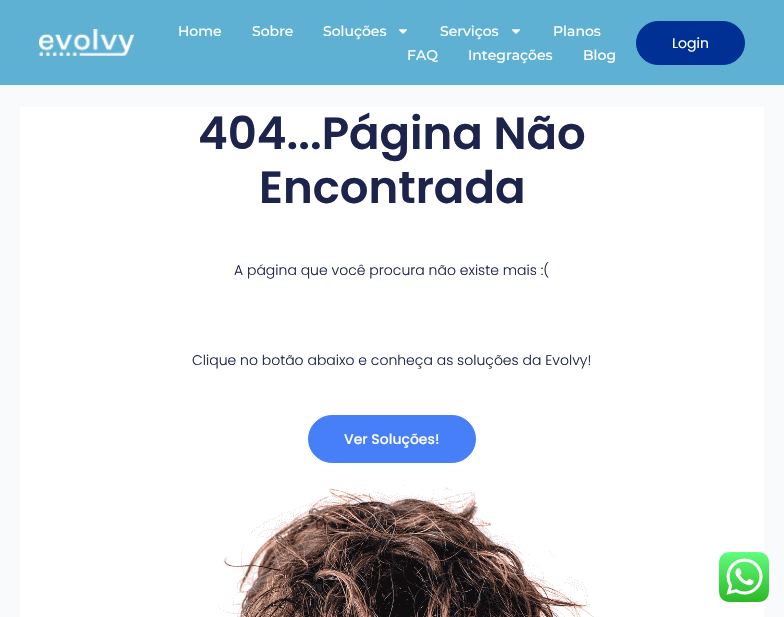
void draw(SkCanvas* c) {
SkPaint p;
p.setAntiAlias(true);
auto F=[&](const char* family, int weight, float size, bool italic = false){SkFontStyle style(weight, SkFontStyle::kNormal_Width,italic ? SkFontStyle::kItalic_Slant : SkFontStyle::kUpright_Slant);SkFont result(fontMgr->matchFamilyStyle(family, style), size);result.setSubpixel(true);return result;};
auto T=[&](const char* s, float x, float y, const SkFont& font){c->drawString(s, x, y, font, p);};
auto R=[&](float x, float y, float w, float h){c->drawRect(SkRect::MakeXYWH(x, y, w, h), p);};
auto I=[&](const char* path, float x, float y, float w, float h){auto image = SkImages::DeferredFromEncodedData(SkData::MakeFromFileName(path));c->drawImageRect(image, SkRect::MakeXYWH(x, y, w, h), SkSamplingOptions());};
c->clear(0xfff9fafb);
p.setColor(0xff5fb1d4);
R(0,0,784,85);
I("1.png",39,29,96,27);
auto f1 = F("Montserrat",500,14);
p.setColor(0xffffffff);
T("Home",178,36,f1);
T("Sobre",252,36,f1);
T("Soluções",323,36,f1);
I("2.png",399,29,8,5);
T("Serviços",440,36,f1);
I("2.png",512,29,8,5);
T("Planos",553,36,f1);
T("FAQ",407,60,f1);
T("Integrações",468,60,f1);
T("Blog",583,60,f1);
p.setColor(0xff003094);
c->drawRoundRect(SkRect::MakeXYWH(636.5,21.5,108,43),21.5,21.5,p);
p.setStroke(true);
p.setStrokeWidth(1);
c->drawRoundRect(SkRect::MakeXYWH(636.5,21.5,108,43),21.5,21.5,p);
auto f2 = F("Poppins",400,14);
p.setStroke(false);
p.setColor(0xffffffff);
T("Login",672,48,f2);
R(20,107,744,510);
auto f3 = F("Poppins",600,45);
p.setColor(0xff1c244b);
T("404...Página Não",198,149,f3);
T("Encontrada",259,203,f3);
auto f4 = F("Poppins",300,14);
T("A página que você procura não existe mais :(",234,275,f4);
T("Clique no botão abaixo e conheça as soluções da Evolvy!",192,365,f4);
p.setColor(0xff467ff7);
c->drawRoundRect(SkRect::MakeXYWH(308.5,415.5,167,47),23.5,23.5,p);
p.setStroke(true);
c->drawRoundRect(SkRect::MakeXYWH(308.5,415.5,167,47),23.5,23.5,p);
auto f5 = F("Poppins",500,14);
p.setStroke(false);
p.setColor(0xffffffff);
T("Ver Soluções!",344,444,f5);
I("3.png",218,485,376,132);
I("4.png",719,552,50,50);
}
